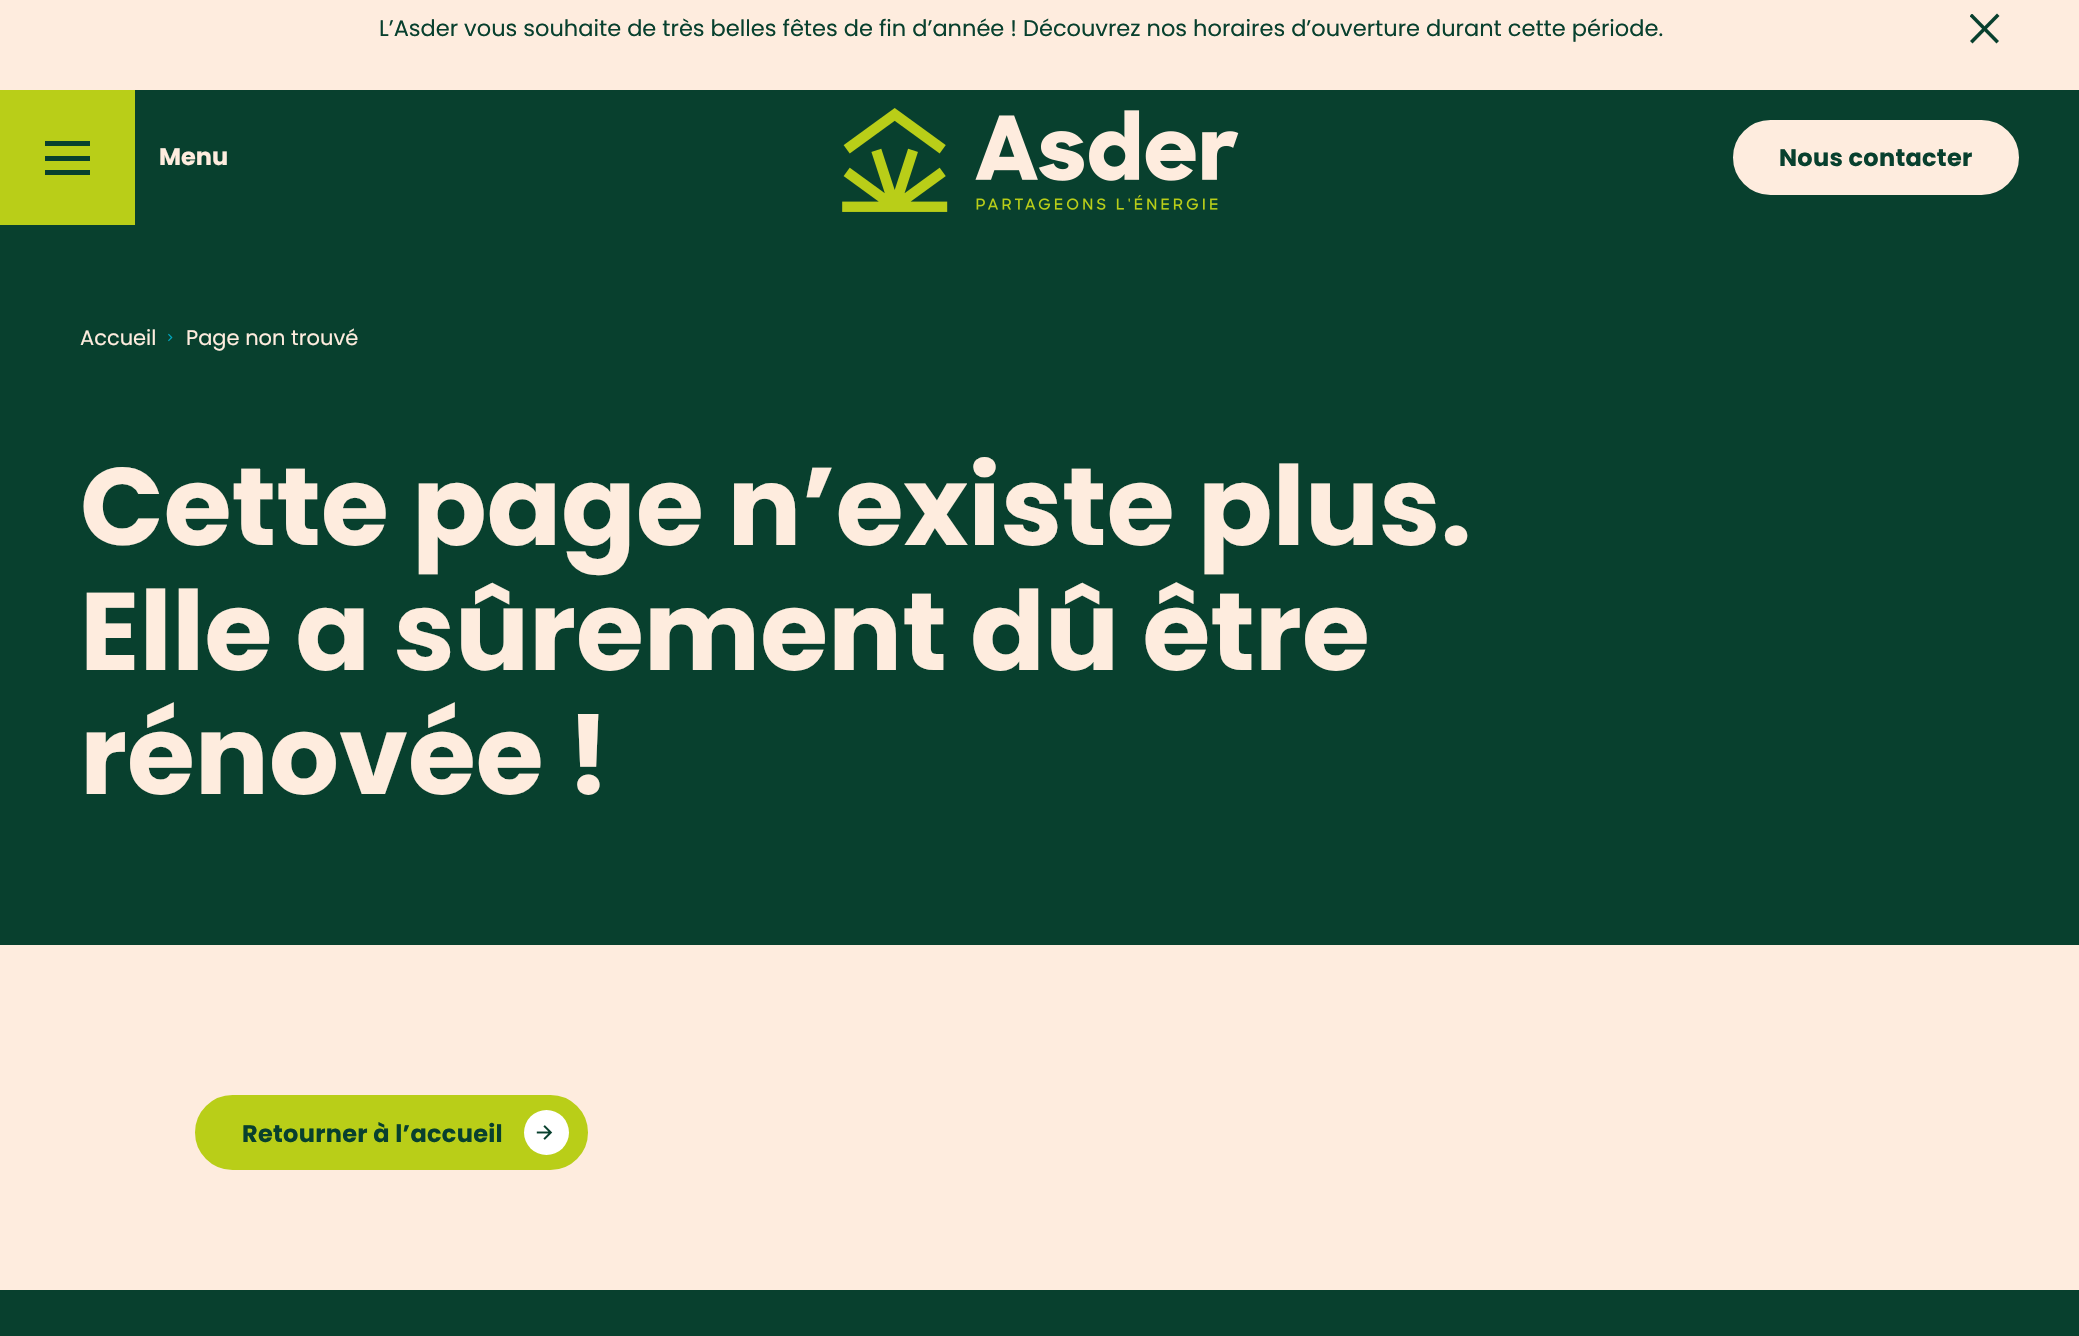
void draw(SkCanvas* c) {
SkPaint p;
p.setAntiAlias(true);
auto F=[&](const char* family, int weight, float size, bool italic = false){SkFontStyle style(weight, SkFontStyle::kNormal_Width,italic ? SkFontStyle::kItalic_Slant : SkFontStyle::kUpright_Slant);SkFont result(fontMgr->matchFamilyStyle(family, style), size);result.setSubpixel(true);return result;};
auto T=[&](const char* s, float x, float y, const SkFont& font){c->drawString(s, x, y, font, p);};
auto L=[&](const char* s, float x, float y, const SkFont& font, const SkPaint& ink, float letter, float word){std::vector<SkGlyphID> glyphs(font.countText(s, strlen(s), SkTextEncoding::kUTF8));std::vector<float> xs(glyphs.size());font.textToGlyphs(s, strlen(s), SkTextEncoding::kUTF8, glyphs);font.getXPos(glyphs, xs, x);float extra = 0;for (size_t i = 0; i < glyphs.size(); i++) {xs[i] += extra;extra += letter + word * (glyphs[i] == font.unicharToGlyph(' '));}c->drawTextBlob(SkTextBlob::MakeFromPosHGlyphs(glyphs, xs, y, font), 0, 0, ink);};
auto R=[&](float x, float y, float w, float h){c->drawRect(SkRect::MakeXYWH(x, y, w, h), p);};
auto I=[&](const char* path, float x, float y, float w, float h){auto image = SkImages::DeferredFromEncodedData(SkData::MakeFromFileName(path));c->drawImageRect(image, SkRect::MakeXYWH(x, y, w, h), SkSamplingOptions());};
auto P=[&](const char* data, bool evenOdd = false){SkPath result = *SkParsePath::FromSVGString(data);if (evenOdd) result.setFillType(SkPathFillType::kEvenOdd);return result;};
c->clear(0xfffeecde);
auto f1 = F("Poppins",400,22.5);
p.setColor(0xff08402e);
T("L’Asder vous souhaite de très belles fêtes de fin d’année ! Découvrez nos horaires d’ouverture durant cette période.",379,36,f1);
c->drawPath(P("M1970 41l27-27.5l2.5 2.5l-27 27.5z"),p);
c->save();
c->clipRect(SkRect::MakeXYWH(1970,14,30,30));
c->drawPath(P("M1999 41l-27-27.5l-2.5 2.5l27 27.5z"),p);
c->restore();
R(135,90,1944,135);
p.setColor(0xffb9ce18);
R(0,90,135,135);
p.setColor(0xff08402e);
R(45,141,45,5);
R(45,156,45,5);
R(45,170,45,5);
auto f2 = F("Poppins",700,24);
p.setColor(0xfffeecde);
T("Menu",159,165,f2);
I("1.png",842,108,397,104);
c->drawRoundRect(SkRect::MakeXYWH(1734,121,284,73),36.5,36.5,p);
p.setStroke(true);
p.setStrokeWidth(2);
c->drawRoundRect(SkRect::MakeXYWH(1734,121,284,73),36.5,36.5,p);
p.setStroke(false);
p.setColor(0xff08402e);
L("Nous contacter",1779,166,f2,p,.3,0);
R(0,225,2079,720);
auto f3 = F("Poppins",400,21);
p.setColor(0xfffeecde);
T("Accueil",80,345,f3);
I("2.png",168,333,5,9);
T("Page non trouvé",186,345,f3);
auto f4 = F("Poppins",700,110);
T("Cette page n’existe plus.",80,545,f4);
T("Elle a sûrement dû être",80,670,f4);
T("rénovée !",80,794,f4);
p.setColor(0xffb9ce18);
c->drawRoundRect(SkRect::MakeXYWH(196,1096,391,73),36.5,36.5,p);
p.setStroke(true);
c->drawRoundRect(SkRect::MakeXYWH(196,1096,391,73),36.5,36.5,p);
p.setStroke(false);
p.setColor(0xff08402e);
L("Retourner à l’accueil",242,1142,f2,p,.3,0);
p.setColor(0xffffffff);
c->drawCircle(546.5,1132.5,22.5,p);
I("3.png",536,1125,17,15);
p.setColor(0xff08402e);
R(0,1290,2079,46);
}
